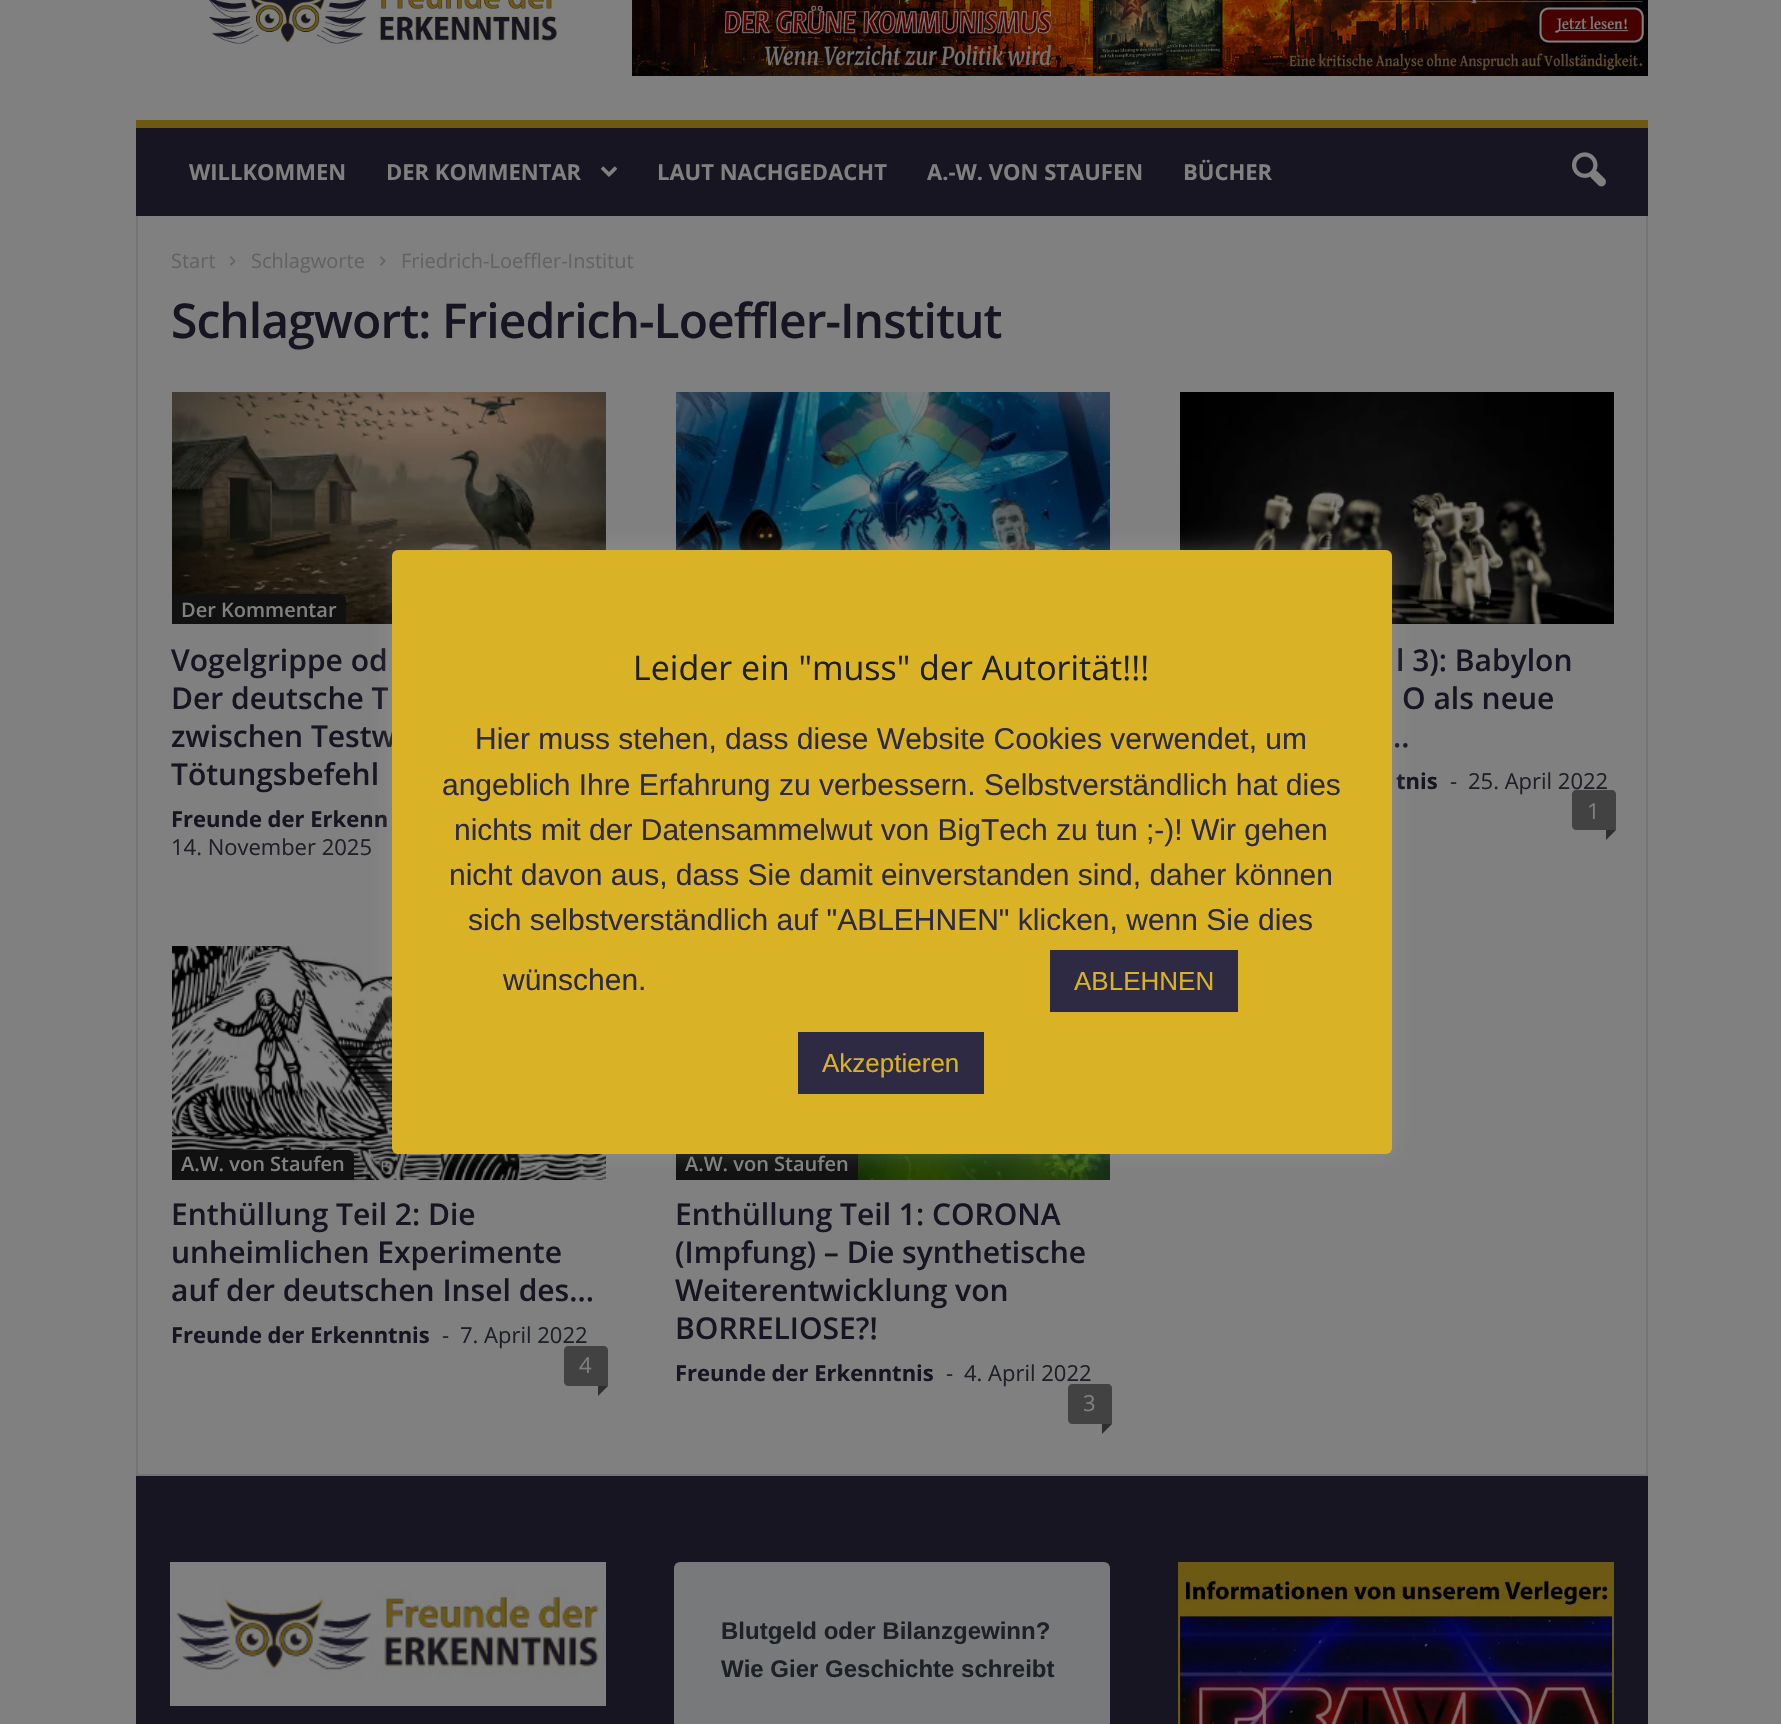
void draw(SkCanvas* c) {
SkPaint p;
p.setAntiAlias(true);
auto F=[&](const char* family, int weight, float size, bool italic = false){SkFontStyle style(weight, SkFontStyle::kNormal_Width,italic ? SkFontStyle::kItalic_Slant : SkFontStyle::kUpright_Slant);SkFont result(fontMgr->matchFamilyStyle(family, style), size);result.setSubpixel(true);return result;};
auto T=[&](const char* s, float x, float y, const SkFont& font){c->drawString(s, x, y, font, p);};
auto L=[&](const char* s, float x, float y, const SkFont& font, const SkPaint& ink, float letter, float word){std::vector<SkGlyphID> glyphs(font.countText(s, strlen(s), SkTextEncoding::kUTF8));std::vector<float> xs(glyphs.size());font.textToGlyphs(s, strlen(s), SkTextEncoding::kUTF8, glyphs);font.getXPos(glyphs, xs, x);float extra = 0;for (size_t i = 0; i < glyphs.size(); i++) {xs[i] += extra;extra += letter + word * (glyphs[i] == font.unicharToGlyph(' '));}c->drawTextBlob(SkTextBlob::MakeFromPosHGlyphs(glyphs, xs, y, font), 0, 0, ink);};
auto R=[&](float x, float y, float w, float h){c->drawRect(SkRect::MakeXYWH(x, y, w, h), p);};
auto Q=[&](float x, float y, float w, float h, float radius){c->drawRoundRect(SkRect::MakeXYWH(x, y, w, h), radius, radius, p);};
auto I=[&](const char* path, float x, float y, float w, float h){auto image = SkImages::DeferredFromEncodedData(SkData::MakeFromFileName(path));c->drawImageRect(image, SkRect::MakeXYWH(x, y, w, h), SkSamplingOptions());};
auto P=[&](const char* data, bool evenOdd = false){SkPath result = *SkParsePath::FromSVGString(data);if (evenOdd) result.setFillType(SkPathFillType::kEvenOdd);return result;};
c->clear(0xff808080);
I("1.png",209,0,348,44);
I("2.png",632,0,1016,76);
p.setColor(0xff171522);
R(136,128,1512,88);
p.setColor(0xff6d5913);
R(136,120,1512,8);
auto f1 = F("Open Sans",700,22);
p.setColor(0xff808080);
T("WILLKOMMEN",189,180,f1);
T("DER KOMMENTAR",386,180,f1);
I("3.png",600,166,18,11);
T("LAUT NACHGEDACHT",657,180,f1);
T("A.-W. VON STAUFEN",927,180,f1);
T("BÜCHER",1183,180,f1);
I("4.png",1572,152,34,35);
p.setColor(0xff737373);
R(136,1474,1512,2);
R(136,216,2,1258);
auto f2 = F("Open Sans",400,20);
p.setColor(0xff626262);
T("Start",171,268,f2);
I("5.png",230,256,6,10);
T("Schlagworte",251,268,f2);
I("5.png",380,256,6,10);
T("Friedrich-Loeffler-Institut",401,268,f2);
auto f3 = F("Open Sans",600,48);
p.setColor(0xff171522);
L("Schlagwort: Friedrich-Loeffler-Institut",171,338,f3,p,-.95,0);
I("6.png",676,392,434,158);
I("7.png",172,392,434,232);
p.setColor(0xff111111);
c->drawPath(P("M172 594h168c3.5 0 6 2.5 6 6v24h-174z"),p);
auto f4 = F("Open Sans",600,20);
p.setColor(0xff808080);
T("Der Kommentar",181,617,f4);
auto f5 = F("Open Sans",600,30);
p.setColor(0xff171522);
T("Vogelgrippe od",171,671,f5);
T("Der deutsche T",171,709,f5);
T("zwischen Testw",171,747,f5);
T("Tötungsbefehl",171,785,f5);
T("Freunde der Erkenn",171,827,f1);
auto f6 = F("Open Sans",400,22);
p.setColor(0xff1d2026);
T("14. November 2025",171,855,f6);
I("8.png",1180,392,434,232);
p.setColor(0xff171522);
T("l 3): Babylon",1396,671,f5);
T("O als neue",1402,709,f5);
T("..",1393,747,f5);
T("tnis",1396,789,f1);
p.setColor(0xff1d2026);
T("-",1450,789,f6);
T("25. April 2022",1468,789,f6);
p.setColor(0xff424242);
c->drawPath(P("M1576 790h36c2 0 4 2 4 4v36h-40c-2 0-4-2-4-4v-32c0-2 2-4 4-4z"),p);
p.setColor(0xff808080);
T("1",1587,819,f6);
p.setColor(0xff2e2e2e);
c->drawPath(P("M1606 830h10l-10 10z"),p);
I("9.png",172,946,434,234);
p.setColor(0xff111111);
c->drawPath(P("M172 1150h176c3.5 0 6 2.5 6 6v24h-182z"),p);
p.setColor(0xff808080);
T("A.W. von Staufen",181,1171,f4);
p.setColor(0xff171522);
T("Enthüllung Teil 2: Die",171,1225,f5);
T("unheimlichen Experimente",171,1263,f5);
T("auf der deutschen Insel des...",171,1301,f5);
T("Freunde der Erkenntnis",171,1343,f1);
p.setColor(0xff1d2026);
T("-",442,1343,f6);
T("7. April 2022",460,1343,f6);
p.setColor(0xff424242);
c->drawPath(P("M568 1346h36c2 0 4 2 4 4v36h-40c-2 0-4-2-4-4v-32c0-2 2-4 4-4z"),p);
p.setColor(0xff808080);
T("4",579,1373,f6);
p.setColor(0xff2e2e2e);
c->drawPath(P("M598 1386h10l-10 10z"),p);
I("10.png",857,1154,253,26);
p.setColor(0xff111111);
c->drawPath(P("M676 1150h176c3.5 0 6 2.5 6 6v24h-182z"),p);
p.setColor(0xff808080);
T("A.W. von Staufen",685,1171,f4);
p.setColor(0xff171522);
T("Enthüllung Teil 1: CORONA",675,1225,f5);
T("(Impfung) – Die synthetische",675,1263,f5);
T("Weiterentwicklung von",675,1301,f5);
T("BORRELIOSE?!",675,1339,f5);
T("Freunde der Erkenntnis",675,1381,f1);
p.setColor(0xff1d2026);
T("-",946,1381,f6);
T("4. April 2022",964,1381,f6);
p.setColor(0xff424242);
c->drawPath(P("M1072 1384h36c2 0 4 2 4 4v36h-40c-2 0-4-2-4-4v-32c0-2 2-4 4-4z"),p);
p.setColor(0xff808080);
T("3",1083,1411,f6);
p.setColor(0xff2e2e2e);
c->drawPath(P("M1102 1424h10l-10 10z"),p);
p.setColor(0xff737373);
R(1646,216,2,1258);
p.setColor(0xff171522);
R(136,1476,1512,248);
I("11.png",170,1562,436,144);
p.setColor(0xff78797a);
Q(674,1562,436,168,6);
auto f7 = F("Liberation Sans",700,24);
p.setColor(0xff1d2026);
T("Blutgeld oder Bilanzgewinn?",721,1639,f7);
T("Wie Gier Geschichte schreibt",721,1677,f7);
I("12.png",1178,1562,436,162);
p.setColor(0x4dacabab);
p.setMaskFilter(SkMaskFilter::MakeBlur(kNormal_SkBlurStyle, 10));
c->drawRoundRect(SkRect::MakeXYWH(392,548,1000,604),6,6,p);
p.setMaskFilter(nullptr);
p.setColor(0xffd9b225);
Q(392,550,1000,604,6);
auto f8 = F("Open Sans",400,34);
p.setColor(0xff1d2026);
T("Leider ein \"muss\" der Autorität!!!",633,680,f8);
auto f9 = F("Liberation Sans",400,30);
p.setColor(0xff2e2a44);
T("Hier muss stehen, dass diese Website Cookies verwendet, um",475,749,f9);
T("angeblich Ihre Erfahrung zu verbessern. Selbstverständlich hat dies",442,795,f9);
T("nichts mit der Datensammelwut von BigTech zu tun ;-)! Wir gehen",454,840,f9);
T("nicht davon aus, dass Sie damit einverstanden sind, daher können",449,885,f9);
T("sich selbstverständlich auf \"ABLEHNEN\" klicken, wenn Sie dies",468,930,f9);
T("wünschen.",503,990,f9);
R(1050,950,188,62);
auto f10 = F("Liberation Sans",400,26);
p.setColor(0xffd9b225);
T("ABLEHNEN",1074,990,f10);
p.setColor(0xff2e2a44);
R(798,1032,186,62);
p.setColor(0xffd9b225);
T("Akzeptieren",822,1072,f10);
}
